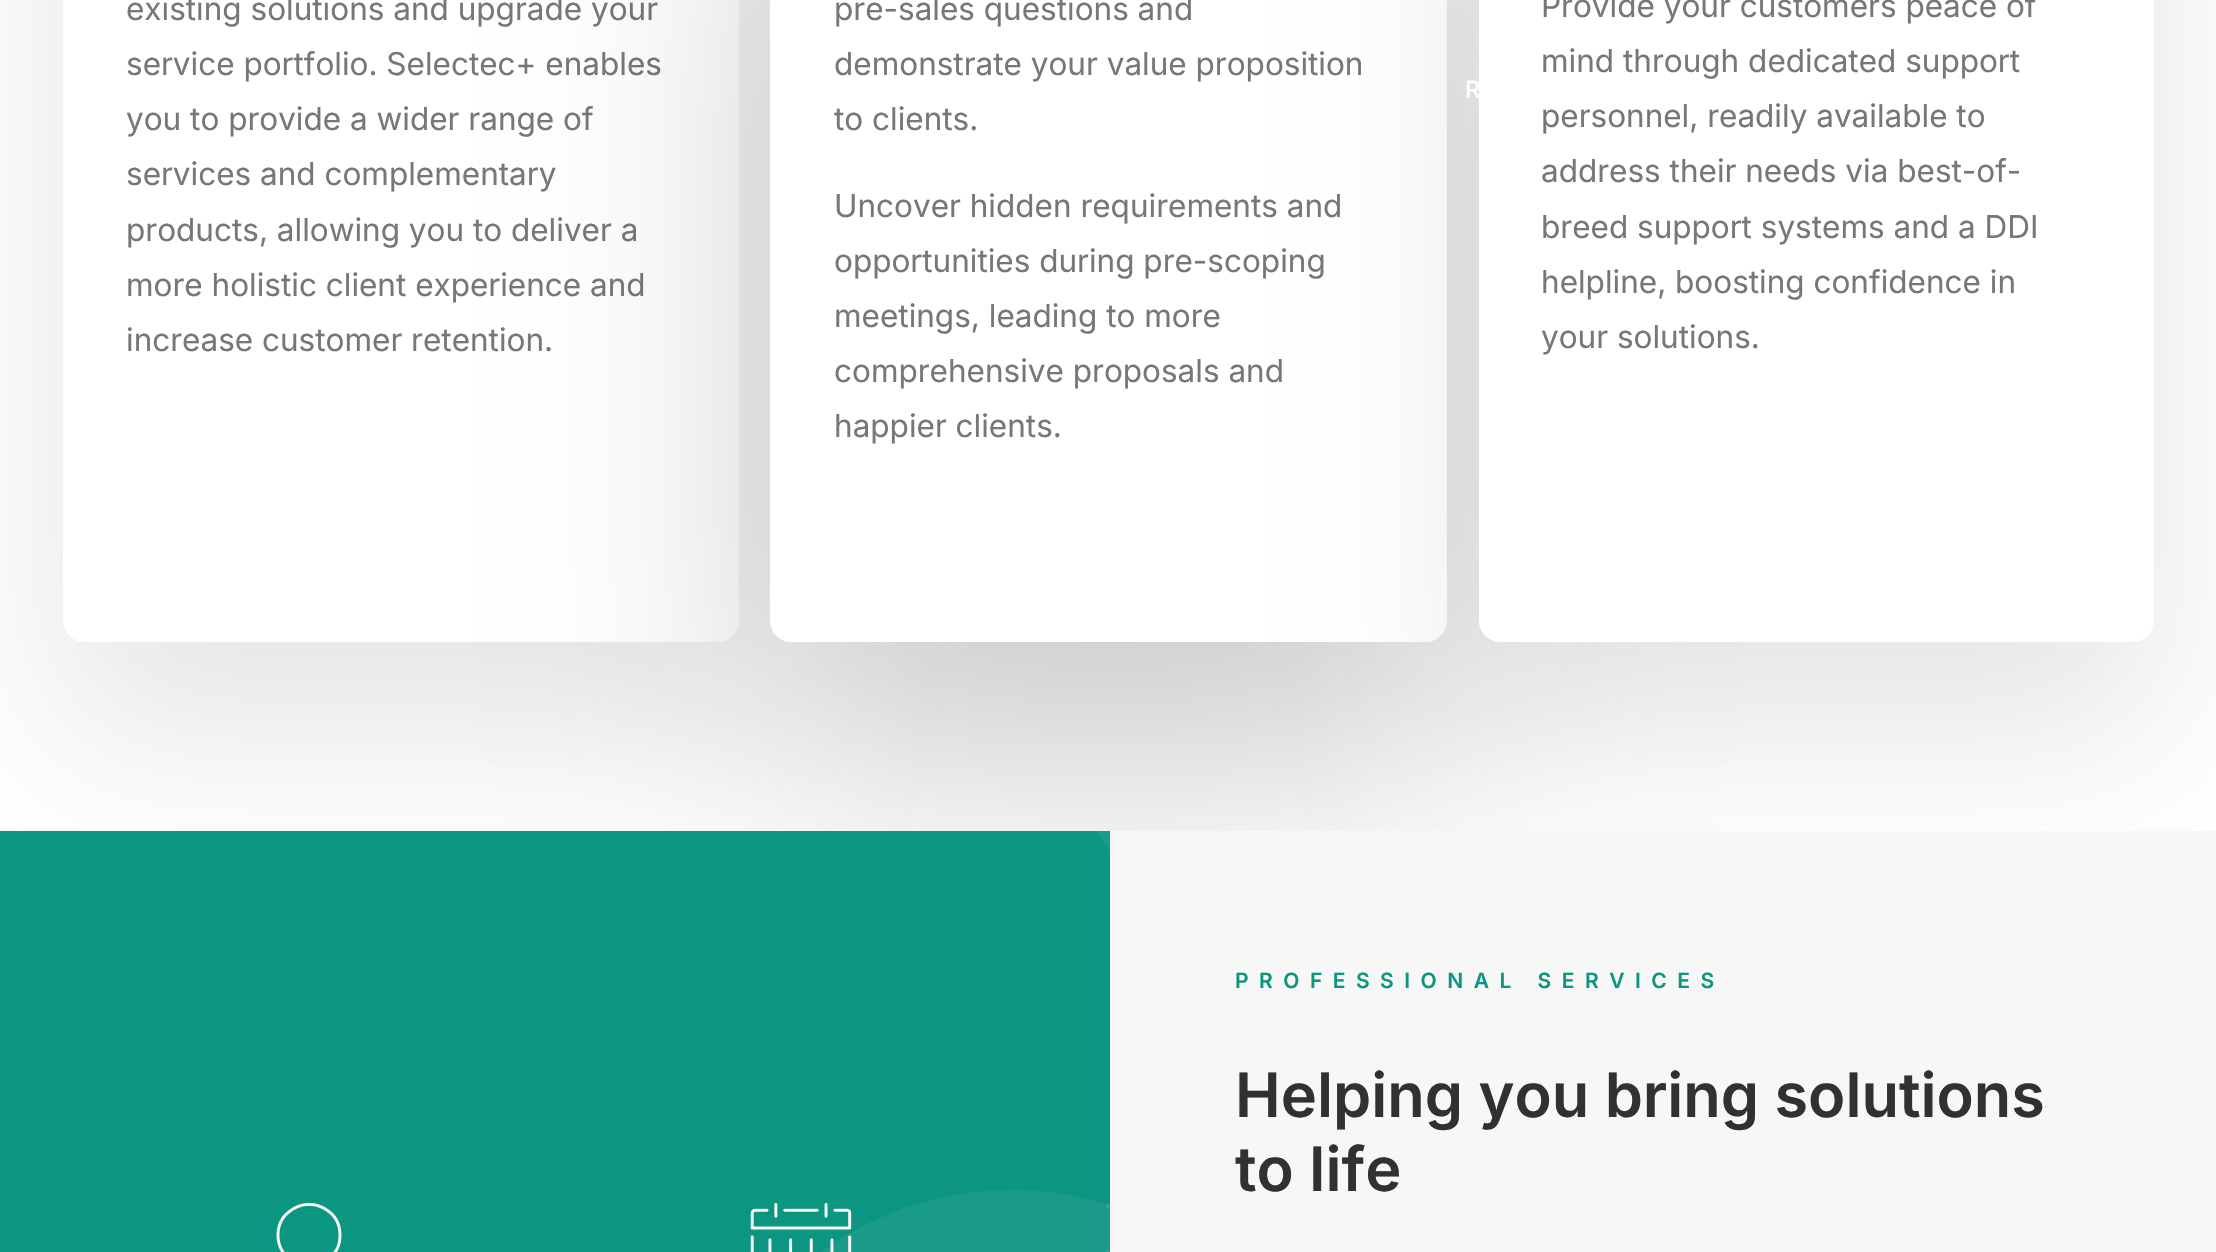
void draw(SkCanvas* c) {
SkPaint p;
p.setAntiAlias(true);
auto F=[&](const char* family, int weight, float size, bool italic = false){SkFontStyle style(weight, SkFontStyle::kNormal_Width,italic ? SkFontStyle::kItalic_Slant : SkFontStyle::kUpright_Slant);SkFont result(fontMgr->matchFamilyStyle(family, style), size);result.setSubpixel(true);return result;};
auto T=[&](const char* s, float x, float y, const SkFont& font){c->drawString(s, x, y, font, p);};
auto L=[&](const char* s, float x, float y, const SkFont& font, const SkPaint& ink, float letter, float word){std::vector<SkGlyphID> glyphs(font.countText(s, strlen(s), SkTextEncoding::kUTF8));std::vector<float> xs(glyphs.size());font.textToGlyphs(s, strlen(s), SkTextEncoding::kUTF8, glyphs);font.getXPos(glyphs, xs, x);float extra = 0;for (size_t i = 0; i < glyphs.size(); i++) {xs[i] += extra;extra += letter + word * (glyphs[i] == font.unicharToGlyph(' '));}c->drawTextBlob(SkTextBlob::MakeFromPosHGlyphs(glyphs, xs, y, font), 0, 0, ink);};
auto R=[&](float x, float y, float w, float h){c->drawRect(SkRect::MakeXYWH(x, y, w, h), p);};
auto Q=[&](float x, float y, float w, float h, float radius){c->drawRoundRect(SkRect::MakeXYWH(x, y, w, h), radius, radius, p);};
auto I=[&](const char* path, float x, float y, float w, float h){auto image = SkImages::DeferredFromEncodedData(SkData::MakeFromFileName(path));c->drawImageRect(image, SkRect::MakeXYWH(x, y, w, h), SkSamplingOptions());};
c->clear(0xffffffff);
p.setColor(0x1a000000);
p.setMaskFilter(SkMaskFilter::MakeBlur(kNormal_SkBlurStyle, 87.5));
c->drawRoundRect(SkRect::MakeXYWH(63,-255,676,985),21,21,p);
p.setMaskFilter(nullptr);
p.setColor(0xffffffff);
Q(63,-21,676,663,21);
auto f1 = F("Inter",400,31.5);
p.setColor(0xff777777);
T("existing solutions and upgrade your",126,20,f1);
T("service portfolio. Selectec+ enables",126,75,f1);
T("you to provide a wider range of",126,130,f1);
T("services and complementary",126,185,f1);
T("products, allowing you to deliver a",126,241,f1);
T("more holistic client experience and",126,296,f1);
T("increase customer retention.",126,351,f1);
p.setColor(0x33000000);
p.setMaskFilter(SkMaskFilter::MakeBlur(kNormal_SkBlurStyle, 122.5));
c->drawRoundRect(SkRect::MakeXYWH(770,-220,677,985),21,21,p);
p.setMaskFilter(nullptr);
p.setColor(0xffffffff);
Q(770,-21,677,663,21);
p.setColor(0xff777777);
T("pre-sales questions and",834,20,f1);
T("demonstrate your value proposition",834,75,f1);
T("to clients.",834,130,f1);
T("Uncover hidden requirements and",834,217,f1);
T("opportunities during pre-scoping",834,272,f1);
T("meetings, leading to more",834,327,f1);
T("comprehensive proposals and",834,382,f1);
T("happier clients.",834,437,f1);
p.setColor(0x1a000000);
p.setMaskFilter(SkMaskFilter::MakeBlur(kNormal_SkBlurStyle, 87.5));
c->drawRoundRect(SkRect::MakeXYWH(1479,-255,675,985),21,21,p);
p.setMaskFilter(nullptr);
p.setColor(0xffffffff);
Q(1479,-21,675,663,21);
p.setColor(0xff777777);
T("Provide your customers peace of",1541,17,f1);
T("mind through dedicated support",1541,72,f1);
T("personnel, readily available to",1541,127,f1);
T("address their needs via best-of-",1541,182,f1);
T("breed support systems and a DDI",1541,238,f1);
T("helpline, boosting confidence in",1541,293,f1);
T("your solutions.",1541,348,f1);
p.setColor(0xfff7f7f7);
R(1110,831,1106,421);
p.setColor(0xff0c9681);
R(0,831,1110,421);
I("1.png",276,1202,66,50);
I("3.png",822,831,288,421);
I("2.png",750,1202,102,50);
auto f2 = F("Inter",600,21);
L("PROFESSIONAL SERVICES",1235,988,f2,p,10.5,0);
auto f3 = F("Inter",600,61.25);
p.setColor(0xff303133);
T("Helping you bring solutions",1235,1117,f3);
T("to life",1235,1191,f3);
auto f4 = F("Inter",600,24);
p.setColor(0xfffcfcfc);
T("R",1465,98,f4);
}
